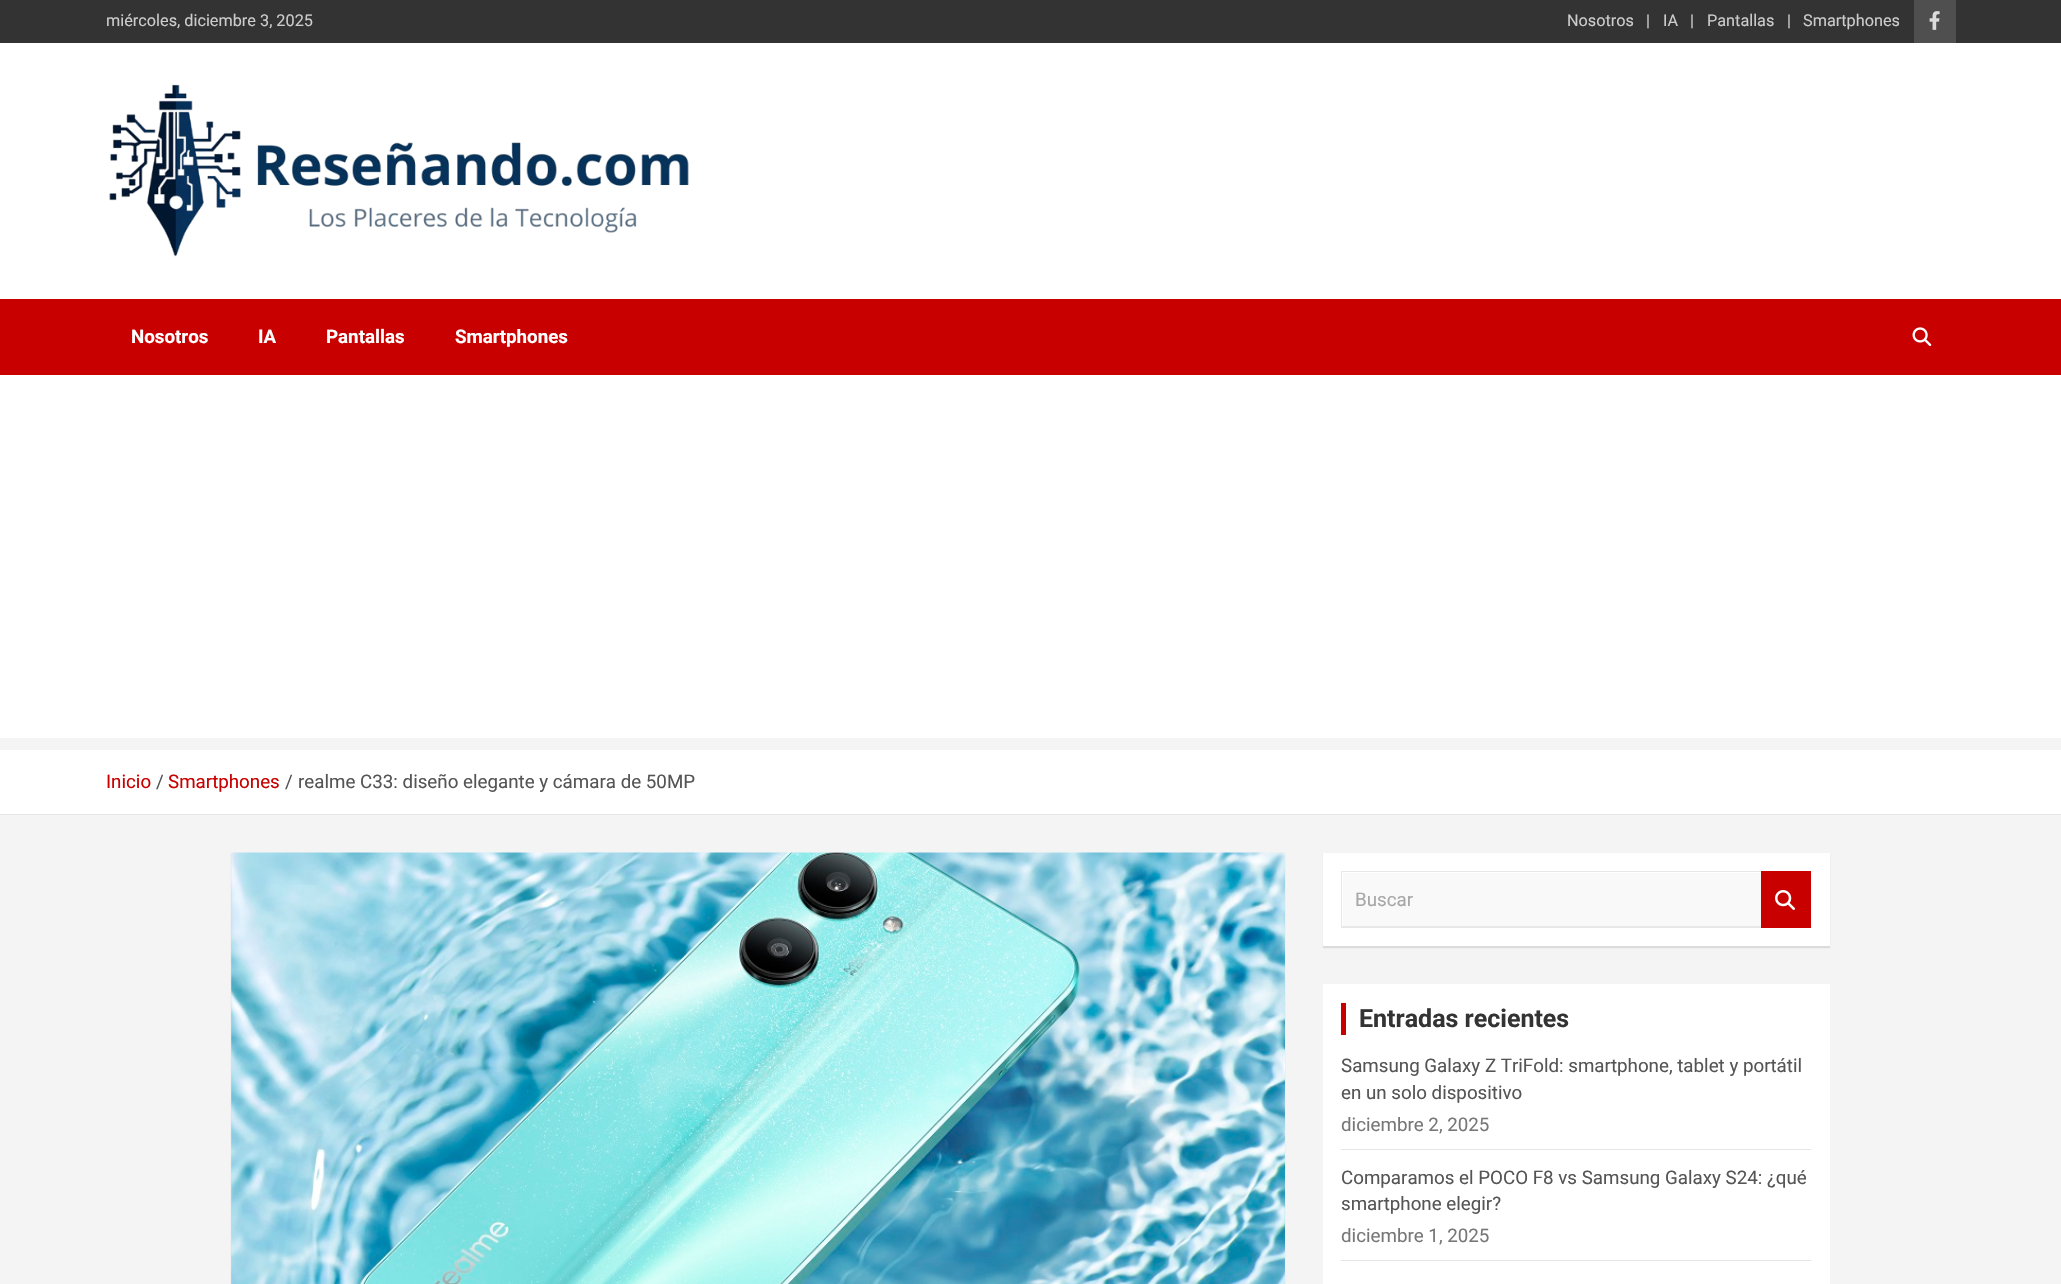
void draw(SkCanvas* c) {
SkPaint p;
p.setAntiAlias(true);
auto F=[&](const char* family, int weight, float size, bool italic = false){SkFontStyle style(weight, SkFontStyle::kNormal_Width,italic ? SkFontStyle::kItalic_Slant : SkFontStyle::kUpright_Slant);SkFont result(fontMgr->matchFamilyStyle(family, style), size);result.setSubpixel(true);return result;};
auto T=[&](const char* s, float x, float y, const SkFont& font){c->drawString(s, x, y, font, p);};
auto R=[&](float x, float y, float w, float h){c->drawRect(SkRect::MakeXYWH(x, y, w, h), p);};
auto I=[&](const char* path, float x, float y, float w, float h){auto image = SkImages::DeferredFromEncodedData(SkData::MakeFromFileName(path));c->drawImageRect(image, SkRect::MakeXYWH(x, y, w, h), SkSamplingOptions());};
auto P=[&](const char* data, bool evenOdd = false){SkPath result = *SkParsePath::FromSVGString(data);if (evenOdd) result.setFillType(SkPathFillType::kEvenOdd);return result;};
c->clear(0xfff4f4f4);
p.setColor(0xff333333);
R(0,0,2061,43);
auto f1 = F("Roboto",400,16.25);
p.setColor(0xffcccccc);
T("miércoles, diciembre 3, 2025",106,26,f1);
T("Nosotros",1567,26,f1);
T("|",1646,26,f1);
T("IA",1663,26,f1);
T("|",1690,26,f1);
T("Pantallas",1707,26,f1);
T("|",1787,26,f1);
T("Smartphones",1803,26,f1);
p.setColor(0xff4f4f4f);
R(1914,0,42,43);
I("1.png",1929,11,11,19);
p.setColor(0xffffffff);
R(0,43,2061,695);
I("2.png",109,84,580,173);
p.setColor(0xffc80000);
R(0,299,2061,76);
auto f2 = F("Roboto",700,18.75);
p.setColor(0xffffffff);
T("Nosotros",131,343,f2);
T("IA",258,343,f2);
T("Pantallas",326,343,f2);
T("Smartphones",455,343,f2);
I("3.png",1912,327,20,20);
R(0,750,2061,64);
p.setColor(0xffe6e6e6);
R(0,814,2061,1);
auto f3 = F("Roboto",400,18.75);
p.setColor(0xffc80000);
T("Inicio",106,788,f3);
p.setColor(0xff555555);
T("/",156,788,f3);
p.setColor(0xffc80000);
T("Smartphones",168,788,f3);
p.setColor(0xff555555);
T("/",285,788,f3);
T("realme C33: diseño elegante y cámara de 50MP",298,788,f3);
p.setColor(0x1a000000);
p.setMaskFilter(SkMaskFilter::MakeBlur(kNormal_SkBlurStyle, .5));
c->drawRect(SkRect::MakeXYWH(231,854,1054,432),p);
p.setMaskFilter(nullptr);
I("4.png",231,852,1054,432);
p.setMaskFilter(SkMaskFilter::MakeBlur(kNormal_SkBlurStyle, .5));
c->drawRect(SkRect::MakeXYWH(1323,854,507,94),p);
p.setMaskFilter(nullptr);
p.setColor(0xffffffff);
R(1323,853,507,93);
p.setColor(0xfff9f9f9);
R(1343,873,418,53);
p.setColor(0xffe8e8e8);
c->drawPath(P("M1341 871h420v1h-419z"),p);
c->drawPath(P("M1761 928h-420l1-2h419z"),p);
p.setColor(0x17000000);
c->drawPath(P("M1341 928v-57l1 1v54z"),p);
p.setColor(0xffa7a7a7);
T("Buscar",1355,906,f3);
p.setColor(0xffc80000);
R(1761,871,50,57);
I("5.png",1775,890,20,20);
p.setColor(0xffffffff);
R(1323,984,507,300);
p.setColor(0xffc80000);
R(1341,1003,5,32);
auto f4 = F("Roboto",700,25);
p.setColor(0xff333333);
T("Entradas recientes",1359,1027,f4);
p.setColor(0xffe6e6e6);
R(1341,1149,470,1);
p.setColor(0xff555555);
T("Samsung Galaxy Z TriFold: smartphone, tablet y portátil",1341,1072,f3);
T("en un solo dispositivo",1341,1099,f3);
p.setColor(0xff777777);
T("diciembre 2, 2025",1341,1131,f3);
p.setColor(0xffe6e6e6);
R(1341,1260,470,1);
p.setColor(0xff555555);
T("Comparamos el POCO F8 vs Samsung Galaxy S24: ¿qué",1341,1184,f3);
T("smartphone elegir?",1341,1210,f3);
p.setColor(0xff777777);
T("diciembre 1, 2025",1341,1242,f3);
}
